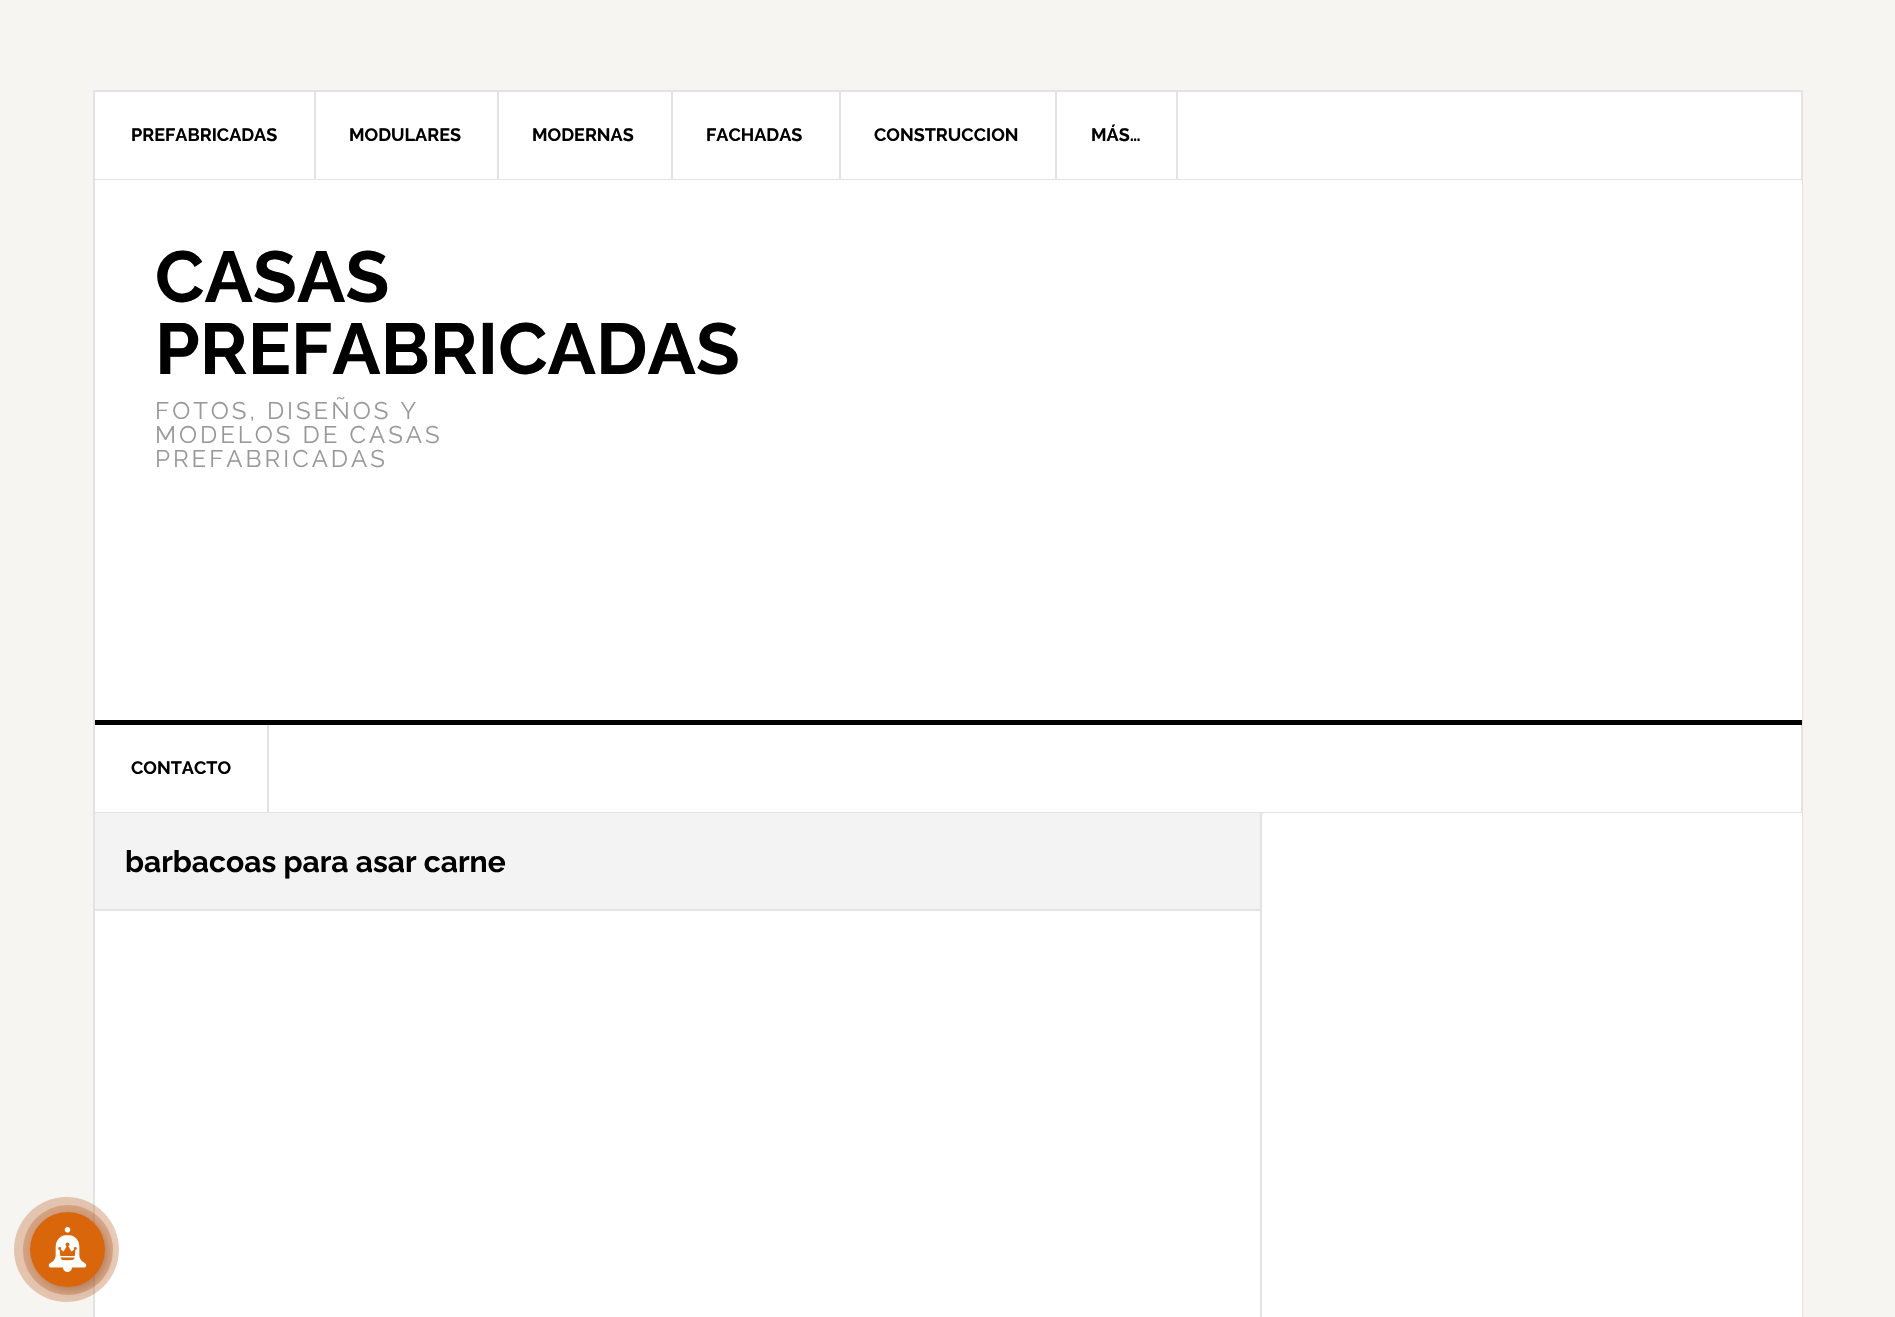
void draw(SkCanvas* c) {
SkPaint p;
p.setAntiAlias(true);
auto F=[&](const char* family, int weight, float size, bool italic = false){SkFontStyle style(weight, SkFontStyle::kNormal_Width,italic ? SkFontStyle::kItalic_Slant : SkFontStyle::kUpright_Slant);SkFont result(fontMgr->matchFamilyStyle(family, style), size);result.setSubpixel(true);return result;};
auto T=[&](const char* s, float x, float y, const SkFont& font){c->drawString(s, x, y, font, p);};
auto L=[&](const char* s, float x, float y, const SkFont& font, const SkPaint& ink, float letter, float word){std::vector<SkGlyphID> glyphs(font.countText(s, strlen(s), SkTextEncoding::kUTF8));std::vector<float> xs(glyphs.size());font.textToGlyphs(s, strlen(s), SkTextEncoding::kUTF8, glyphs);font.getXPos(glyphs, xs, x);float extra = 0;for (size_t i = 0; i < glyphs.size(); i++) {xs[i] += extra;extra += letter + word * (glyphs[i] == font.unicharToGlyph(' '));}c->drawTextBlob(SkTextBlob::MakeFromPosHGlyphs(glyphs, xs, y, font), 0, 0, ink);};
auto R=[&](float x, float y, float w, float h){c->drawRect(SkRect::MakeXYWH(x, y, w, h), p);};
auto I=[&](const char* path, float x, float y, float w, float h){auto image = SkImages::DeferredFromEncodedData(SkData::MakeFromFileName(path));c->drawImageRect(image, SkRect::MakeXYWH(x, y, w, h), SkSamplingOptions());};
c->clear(0xfff6f5f2);
p.setColor(0xffffffff);
c->drawRect(SkRect::MakeXYWH(94,91,1708,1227),p);
p.setStroke(true);
p.setStrokeWidth(2);
p.setColor(0xffe3e3e3);
c->drawRect(SkRect::MakeXYWH(94,91,1708,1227),p);
p.setStroke(false);
R(95,179,1707,1);
R(314,92,2,87);
auto f1 = F("Raleway",700,18);
p.setColor(0xff000000);
T("PREFABRICADAS",131,141,f1);
p.setColor(0xffe3e3e3);
R(497,92,2,87);
p.setColor(0xff000000);
T("MODULARES",349,141,f1);
p.setColor(0xffe3e3e3);
R(671,92,2,87);
p.setColor(0xff000000);
T("MODERNAS",532,141,f1);
p.setColor(0xffe3e3e3);
R(839,92,2,87);
p.setColor(0xff000000);
T("FACHADAS",706,141,f1);
p.setColor(0xffe3e3e3);
R(1055,92,2,87);
p.setColor(0xff000000);
T("CONSTRUCCION",874,141,f1);
p.setColor(0xffe3e3e3);
R(1176,92,2,87);
p.setColor(0xff000000);
T("MÁS…",1091,141,f1);
p.setColor(0xffffffff);
R(1801,180,1,540);
p.setColor(0xff000000);
R(95,720,1707,5);
auto f2 = F("Raleway",700,72);
T("CASAS",155,302,f2);
T("PREFABRICADAS",155,374,f2);
auto f3 = F("Raleway",400,24);
p.setColor(0xff999999);
L("FOTOS, DISEÑOS Y",155,419,f3,p,3,0);
L("MODELOS DE CASAS",155,443,f3,p,3,0);
L("PREFABRICADAS",155,467,f3,p,3,0);
p.setColor(0xffe3e3e3);
R(95,812,1707,2);
R(267,725,2,87);
p.setColor(0xff000000);
T("CONTACTO",131,774,f1);
p.setColor(0xffe3e3e3);
R(1260,813,2,504);
p.setColor(0xfff3f3f3);
R(95,813,1165,96);
p.setColor(0xffe3e3e3);
R(95,909,1165,2);
auto f4 = F("Raleway",700,30);
p.setColor(0xff000000);
T("barbacoas para asar carne",125,872,f4);
p.setColor(0xffffffff);
R(1263,813,539,504);
p.setColor(0x4d000000);
p.setMaskFilter(SkMaskFilter::MakeBlur(kNormal_SkBlurStyle, 4));
c->drawRoundRect(SkRect::MakeXYWH(33,1215,75,75),37.5,37.5,p);
p.setMaskFilter(nullptr);
p.setColor(0xffff7900);
c->drawCircle(67.5,1249.5,37.5,p);
p.setColor(0x4db55214);
c->drawCircle(68,1250,45,p);
c->drawCircle(66.5,1249.5,52.5,p);
I("1.png",48,1227,39,45);
}
